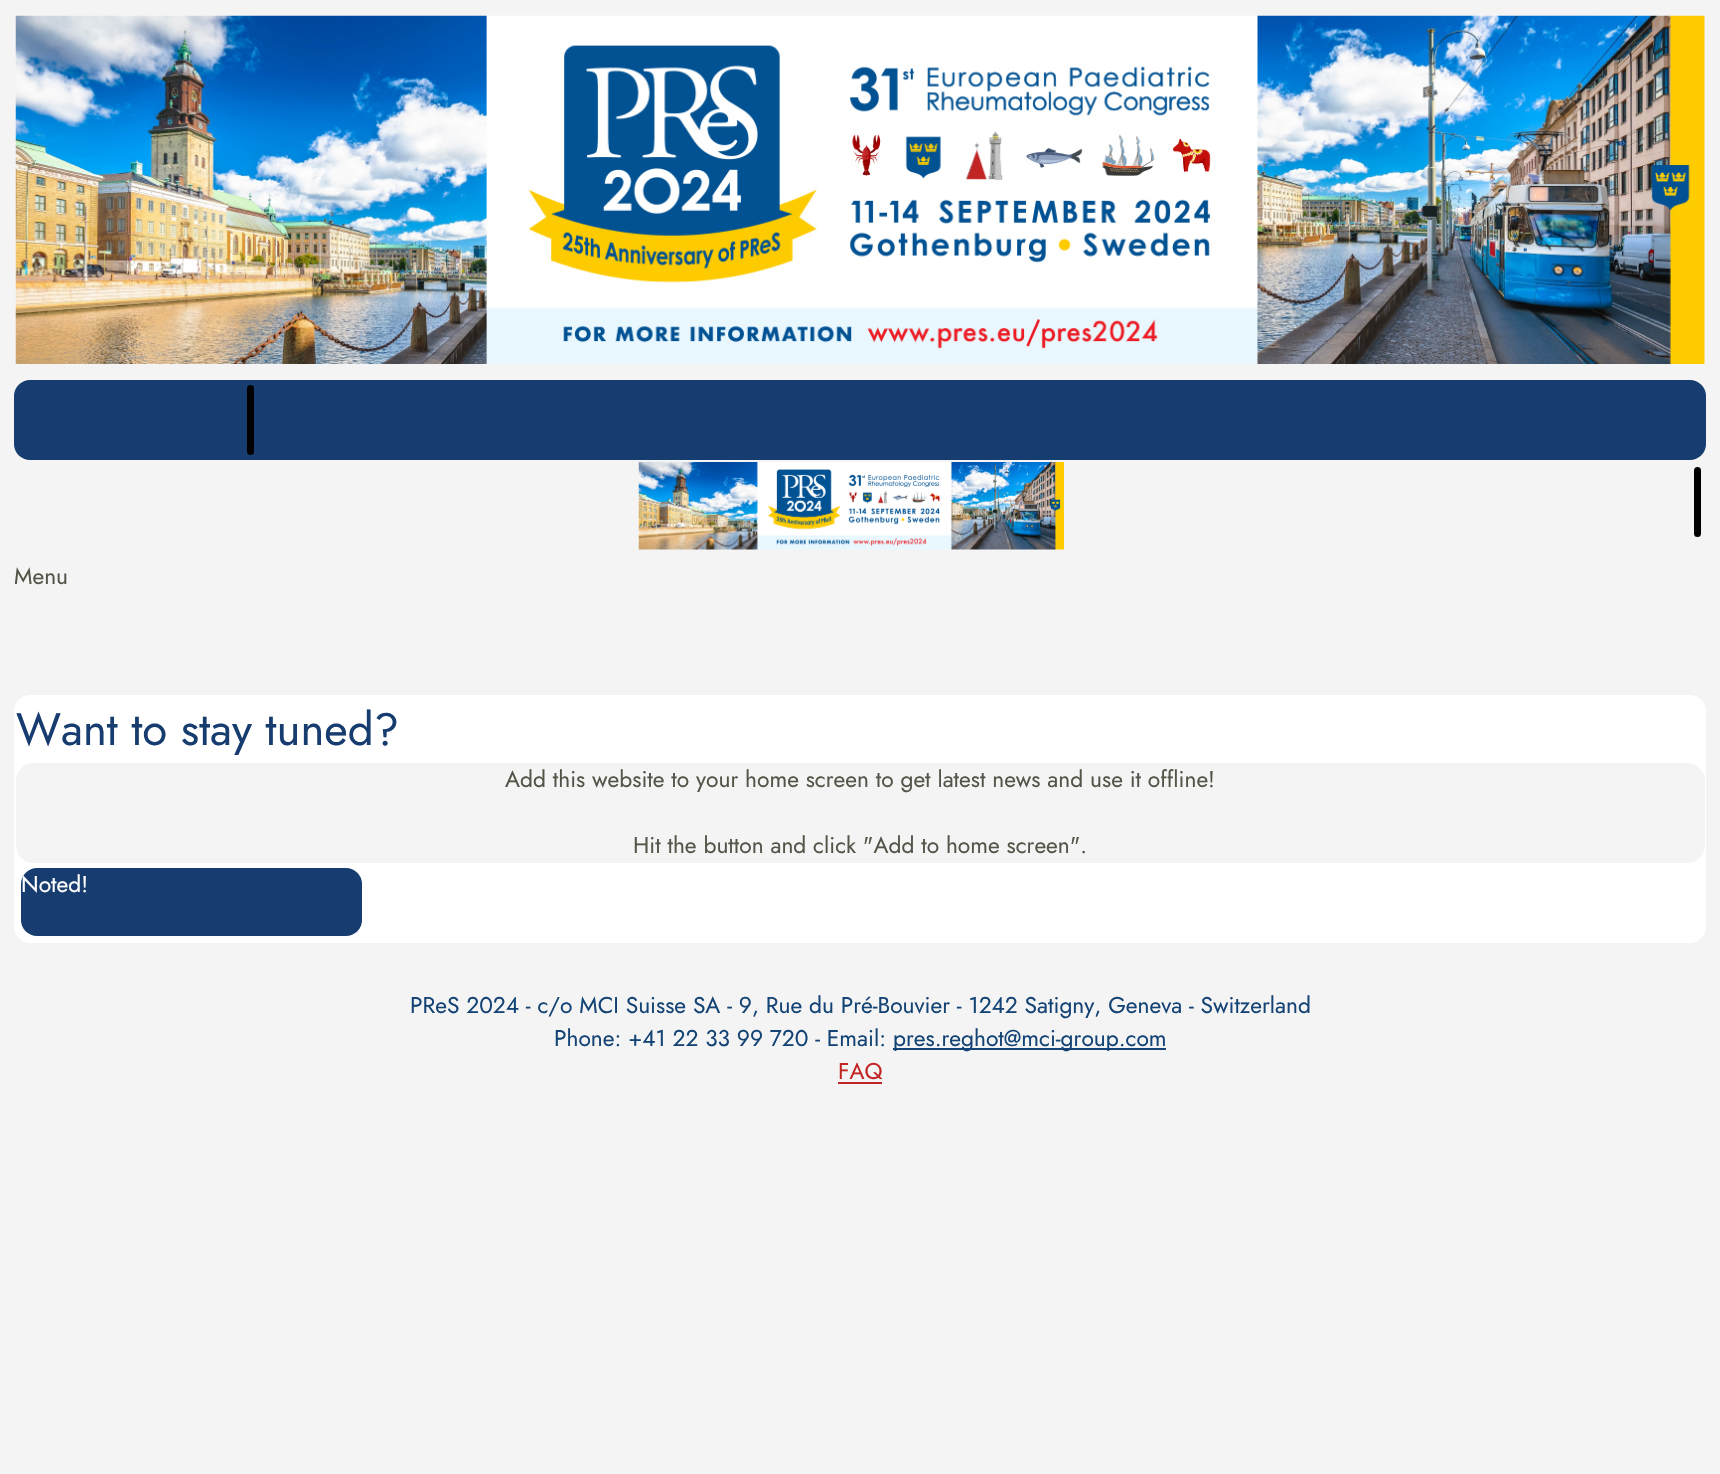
void draw(SkCanvas* c) {
SkPaint p;
p.setAntiAlias(true);
auto F=[&](const char* family, int weight, float size, bool italic = false){SkFontStyle style(weight, SkFontStyle::kNormal_Width,italic ? SkFontStyle::kItalic_Slant : SkFontStyle::kUpright_Slant);SkFont result(fontMgr->matchFamilyStyle(family, style), size);result.setSubpixel(true);return result;};
auto T=[&](const char* s, float x, float y, const SkFont& font){c->drawString(s, x, y, font, p);};
auto R=[&](float x, float y, float w, float h){c->drawRect(SkRect::MakeXYWH(x, y, w, h), p);};
auto Q=[&](float x, float y, float w, float h, float radius){c->drawRoundRect(SkRect::MakeXYWH(x, y, w, h), radius, radius, p);};
auto I=[&](const char* path, float x, float y, float w, float h){auto image = SkImages::DeferredFromEncodedData(SkData::MakeFromFileName(path));c->drawImageRect(image, SkRect::MakeXYWH(x, y, w, h), SkSamplingOptions());};
auto P=[&](const char* data, bool evenOdd = false){SkPath result = *SkParsePath::FromSVGString(data);if (evenOdd) result.setFillType(SkPathFillType::kEvenOdd);return result;};
c->clear(0xfff4f4f4);
I("1.png",15,15,1690,349);
p.setColor(0xff173c6f);
Q(14,380,1692,80,16);
p.setColor(0xff000000);
Q(247,385,7,70,3.5);
I("2.png",638,462,426,88);
Q(1694,467,7,70,3.5);
auto f1 = F("Jost",400,22.75);
p.setColor(0xff535548);
T("Menu",14,584,f1);
p.setColor(0xffffffff);
c->drawRoundRect(SkRect::MakeXYWH(15,696,1690,246),15,15,p);
p.setStroke(true);
p.setStrokeWidth(2);
c->drawRoundRect(SkRect::MakeXYWH(15,696,1690,246),15,15,p);
auto f2 = F("Jost",400,45.5);
p.setStroke(false);
p.setColor(0xff173c6f);
T("Want to stay tuned?",16,745,f2);
p.setColor(0xfff4f4f4);
Q(16,763,1689,100,18);
p.setColor(0xff535548);
T("Add this website to your home screen to get latest news and use it offline!",505,787,f1);
T("Hit the button and click \"Add to home screen\".",633,853,f1);
p.setColor(0xff173c6f);
Q(21,868,341,68,16);
c->save();
c->clipPath(P("M37 868h309c9 0 16 7 16 16v36c0 9-7 16-16 16h-309c-9 0-16-7-16-16v-36c0-9 7-16 16-16z"),true);
p.setColor(0xffffffff);
T("Noted!",21,892,f1);
c->restore();
p.setColor(0xff144475);
T("PReS 2024 - c/o MCI Suisse SA - 9, Rue du Pré-Bouvier - 1242 Satigny, Geneva - Switzerland",410,1013,f1);
T("Phone: +41 22 33 99 720 - Email:",554,1046,f1);
R(893,1048,273,2);
T("pres.reghot@mci-group.com",893,1046,f1);
p.setColor(0xffc22525);
T("FAQ",838,1079,f1);
R(838,1082,44,2);
}
